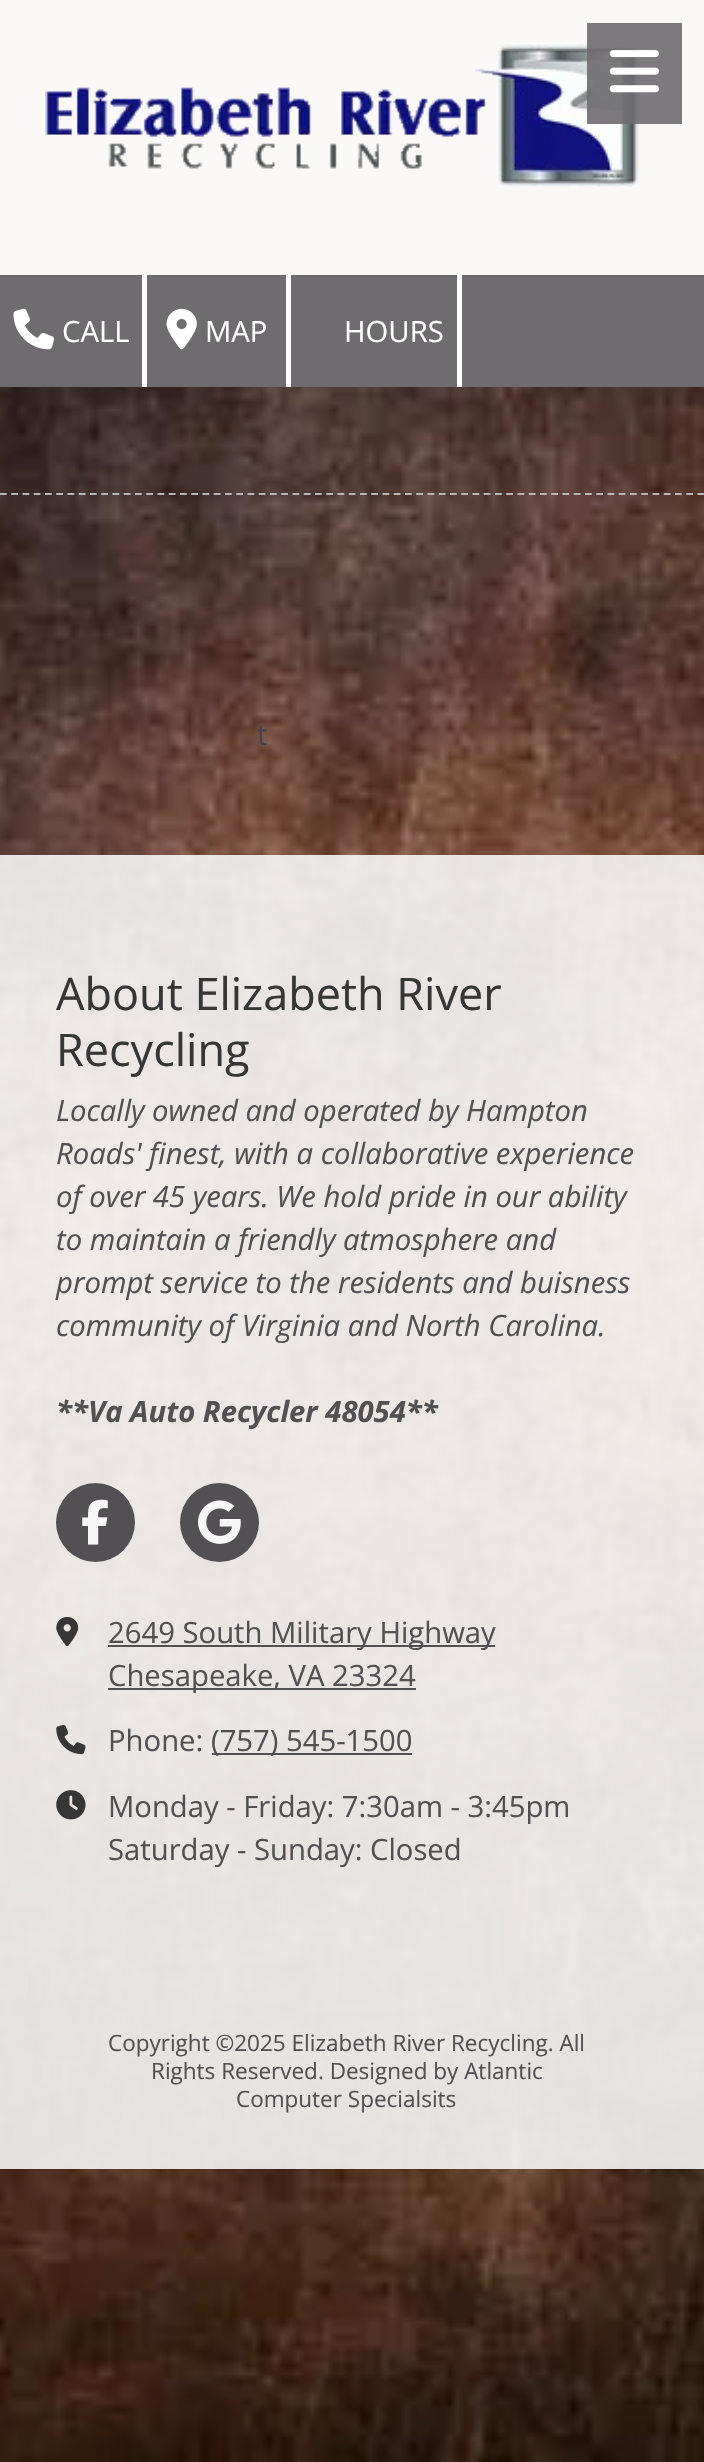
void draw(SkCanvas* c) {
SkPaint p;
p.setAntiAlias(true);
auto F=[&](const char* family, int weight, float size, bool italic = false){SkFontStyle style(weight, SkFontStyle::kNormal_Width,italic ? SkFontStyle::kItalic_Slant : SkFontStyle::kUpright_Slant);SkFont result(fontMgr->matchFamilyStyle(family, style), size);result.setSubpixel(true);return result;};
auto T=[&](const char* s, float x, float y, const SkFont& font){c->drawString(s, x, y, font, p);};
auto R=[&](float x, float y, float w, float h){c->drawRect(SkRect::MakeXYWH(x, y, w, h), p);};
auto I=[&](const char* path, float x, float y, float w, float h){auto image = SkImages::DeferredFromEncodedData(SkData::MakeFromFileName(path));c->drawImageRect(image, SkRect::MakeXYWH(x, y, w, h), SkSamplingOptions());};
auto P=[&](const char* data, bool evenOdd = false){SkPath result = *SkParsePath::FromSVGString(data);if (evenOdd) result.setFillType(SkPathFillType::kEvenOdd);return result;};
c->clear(0xffffffff);
p.setColor(0xfffaf9f7);
R(0,0,704,275);
I("2.png",45,43,595,144);
p.setColor(0xe66e6c6e);
R(587,23,95,101);
I("1.png",609,50,50,43);
p.setColor(0xff6e6c6e);
R(0,275,704,112);
p.setColor(0xffffffff);
R(142,275,5,112);
I("3.png",13,308,41,42);
auto f1 = F("Open Sans",400,29.25);
T("CALL",62,342,f1);
R(286,275,5,112);
I("4.png",166,308,31,42);
T("MAP",205,342,f1);
R(457,275,5,112);
T("HOURS",344,342,f1);
I("10.png",0,387,704,2075);
p.setStroke(true);
p.setStrokeWidth(2.2);
p.setColor(0xffb7b7b7);
p.setPathEffect(SkDashPathEffect::Make({{6.75f,4.5f}}, 0));
c->drawPath(P("M0 494h704"),p);
p.setPathEffect(nullptr);
p.setStroke(false);
p.setColor(0xff444444);
T("t",257,745,f1);
p.setColor(0xe3f7f7f7);
R(0,855,704,1314);
auto f2 = F("Open Sans",400,45);
p.setColor(0xff363636);
T("About Elizabeth River",56,1010,f2);
T("Recycling",56,1066,f2);
auto f3 = F("Open Sans",400,29.25,true);
p.setColor(0xff525052);
T("Locally owned and operated by Hampton",56,1121,f3);
T("Roads' finest, with a collaborative experience",56,1164,f3);
T("of over 45 years. We hold pride in our ability",56,1207,f3);
T("to maintain a friendly atmosphere and",56,1250,f3);
T("prompt service to the residents and buisness",56,1293,f3);
T("community of Virginia and North Carolina.",56,1336,f3);
auto f4 = F("Open Sans",700,29.25,true);
T("**Va Auto Recycler 48054**",56,1422,f4);
c->drawCircle(95.5,1522.5,39.5,p);
I("5.png",82,1499,26,46);
c->drawCircle(219.5,1522.5,39.5,p);
I("6.png",198,1500,43,44);
I("7.png",56,1616,23,31);
R(108,1645,387,2);
T("2649 South Military Highway",108,1643,f1);
R(108,1688,308,2);
T("Chesapeake, VA 23324",108,1686,f1);
I("8.png",56,1724,30,31);
T("Phone:",108,1751,f1);
R(212,1753,200,2);
T("(757) 545-1500",211,1751,f1);
I("9.png",56,1790,30,30);
T("Monday - Friday: 7:30am - 3:45pm",108,1817,f1);
T("Saturday - Sunday: Closed",108,1860,f1);
auto f5 = F("Open Sans",400,22.5);
T("Copyright ©2025 Elizabeth River Recycling. All",108,2051,f5);
T("Rights Reserved. Designed by Atlantic",151,2079,f5);
T("Computer Specialsits",236,2107,f5);
}
